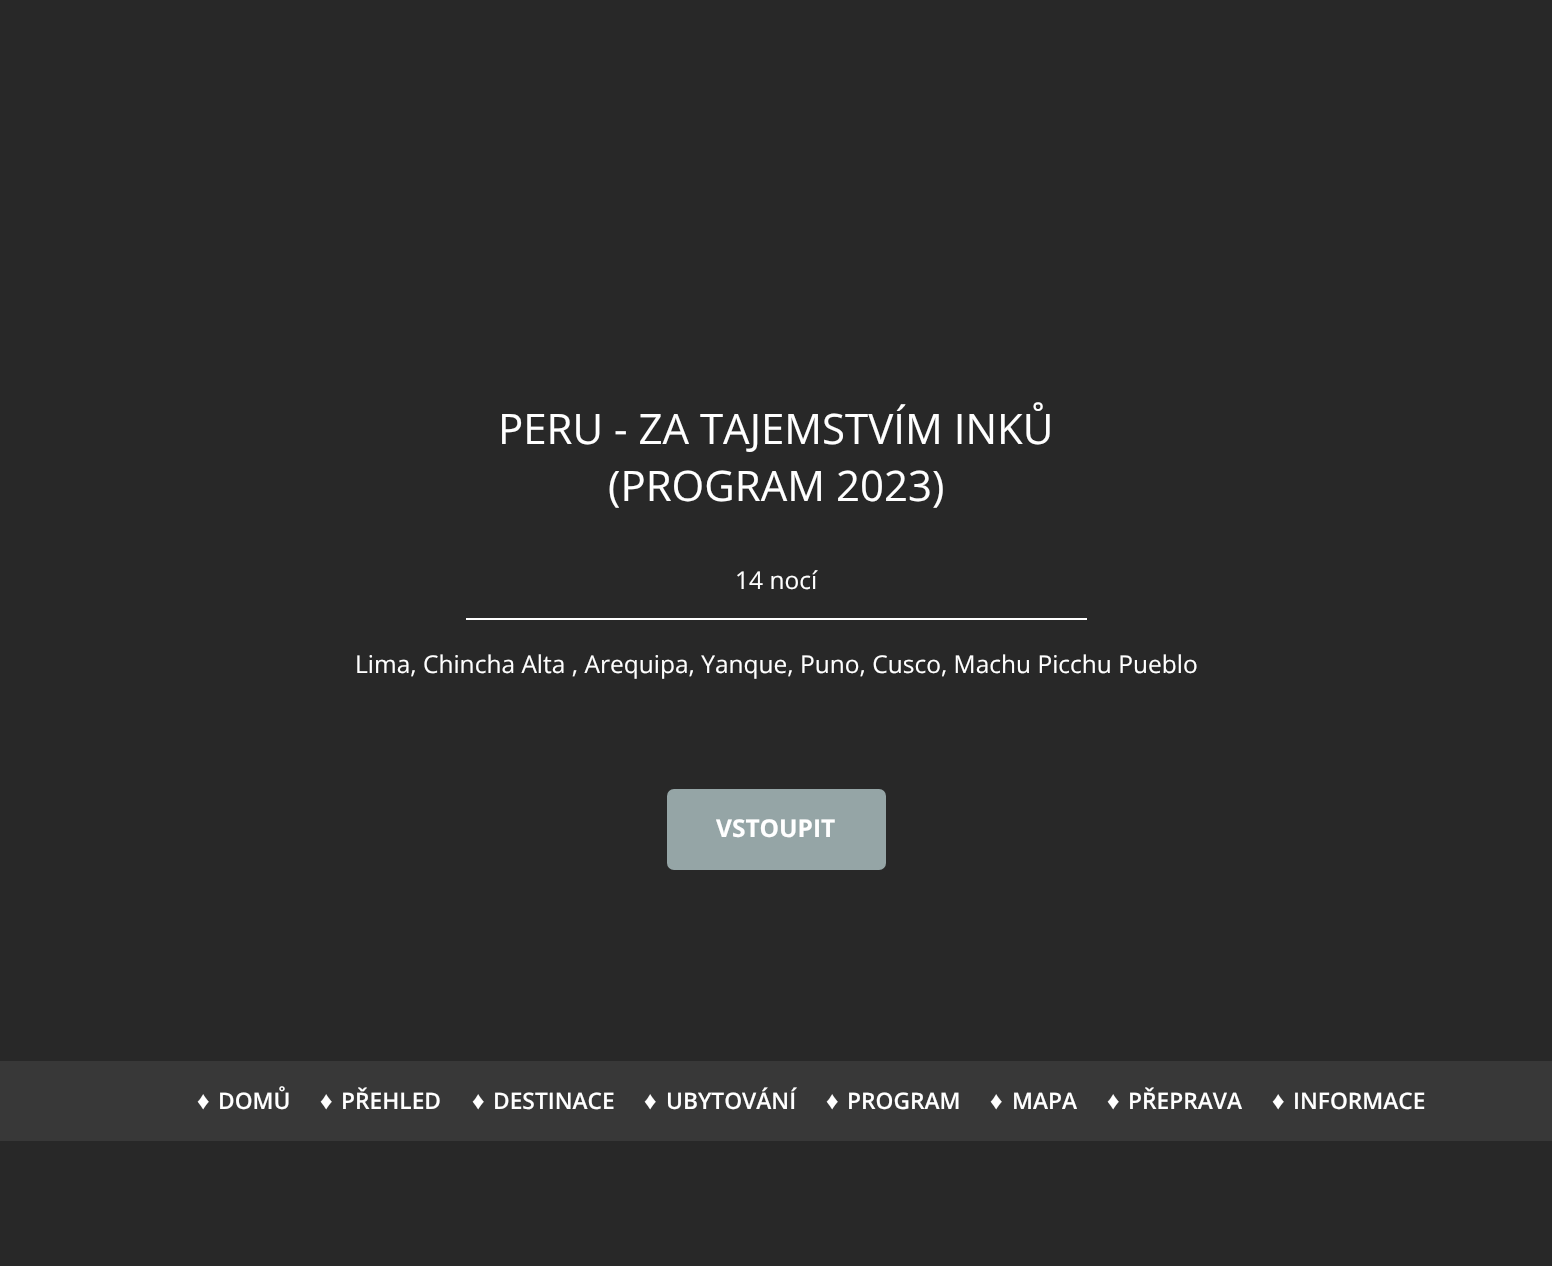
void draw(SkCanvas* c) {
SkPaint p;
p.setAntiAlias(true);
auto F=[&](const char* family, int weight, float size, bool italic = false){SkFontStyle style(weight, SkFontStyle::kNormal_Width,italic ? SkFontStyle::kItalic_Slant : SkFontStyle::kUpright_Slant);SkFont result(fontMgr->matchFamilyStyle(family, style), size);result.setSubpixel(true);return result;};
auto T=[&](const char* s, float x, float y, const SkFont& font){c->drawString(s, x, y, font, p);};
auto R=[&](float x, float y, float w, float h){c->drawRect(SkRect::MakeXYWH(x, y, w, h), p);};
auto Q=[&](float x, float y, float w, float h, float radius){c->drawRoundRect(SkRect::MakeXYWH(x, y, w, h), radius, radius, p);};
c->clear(0xff282828);
p.setColor(0xffffffff);
R(466,618,621,2);
auto f1 = F("Open Sans",400,42);
T("PERU - ZA TAJEMSTVÍM INKŮ",498,444,f1);
T("(PROGRAM 2023)",608,501,f1);
auto f2 = F("Open Sans",400,24.5);
T("14 nocí",735,589,f2);
T("Lima, Chincha Alta , Arequipa, Yanque, Puno, Cusco, Machu Picchu Pueblo",355,673,f2);
p.setColor(0xff95a5a6);
Q(667,789,219,81,7);
auto f3 = F("Open Sans",700,24.5);
p.setColor(0xffffffff);
T("VSTOUPIT",716,837,f3);
p.setColor(0xff383838);
R(0,1061,1552,80);
auto f4 = F("Liberation Sans",400,24.5);
p.setColor(0xffffffff);
T("♦",197,1109,f4);
auto f5 = F("Open Sans",600,22.75);
T("DOMŮ",218,1109,f5);
T("♦",320,1109,f4);
T("PŘEHLED",341,1109,f5);
T("♦",472,1109,f4);
T("DESTINACE",493,1109,f5);
T("♦",644,1109,f4);
T("UBYTOVÁNÍ",666,1109,f5);
T("♦",826,1109,f4);
T("PROGRAM",847,1109,f5);
T("♦",990,1109,f4);
T("MAPA",1012,1109,f5);
T("♦",1107,1109,f4);
T("PŘEPRAVA",1128,1109,f5);
T("♦",1272,1109,f4);
T("INFORMACE",1293,1109,f5);
}
